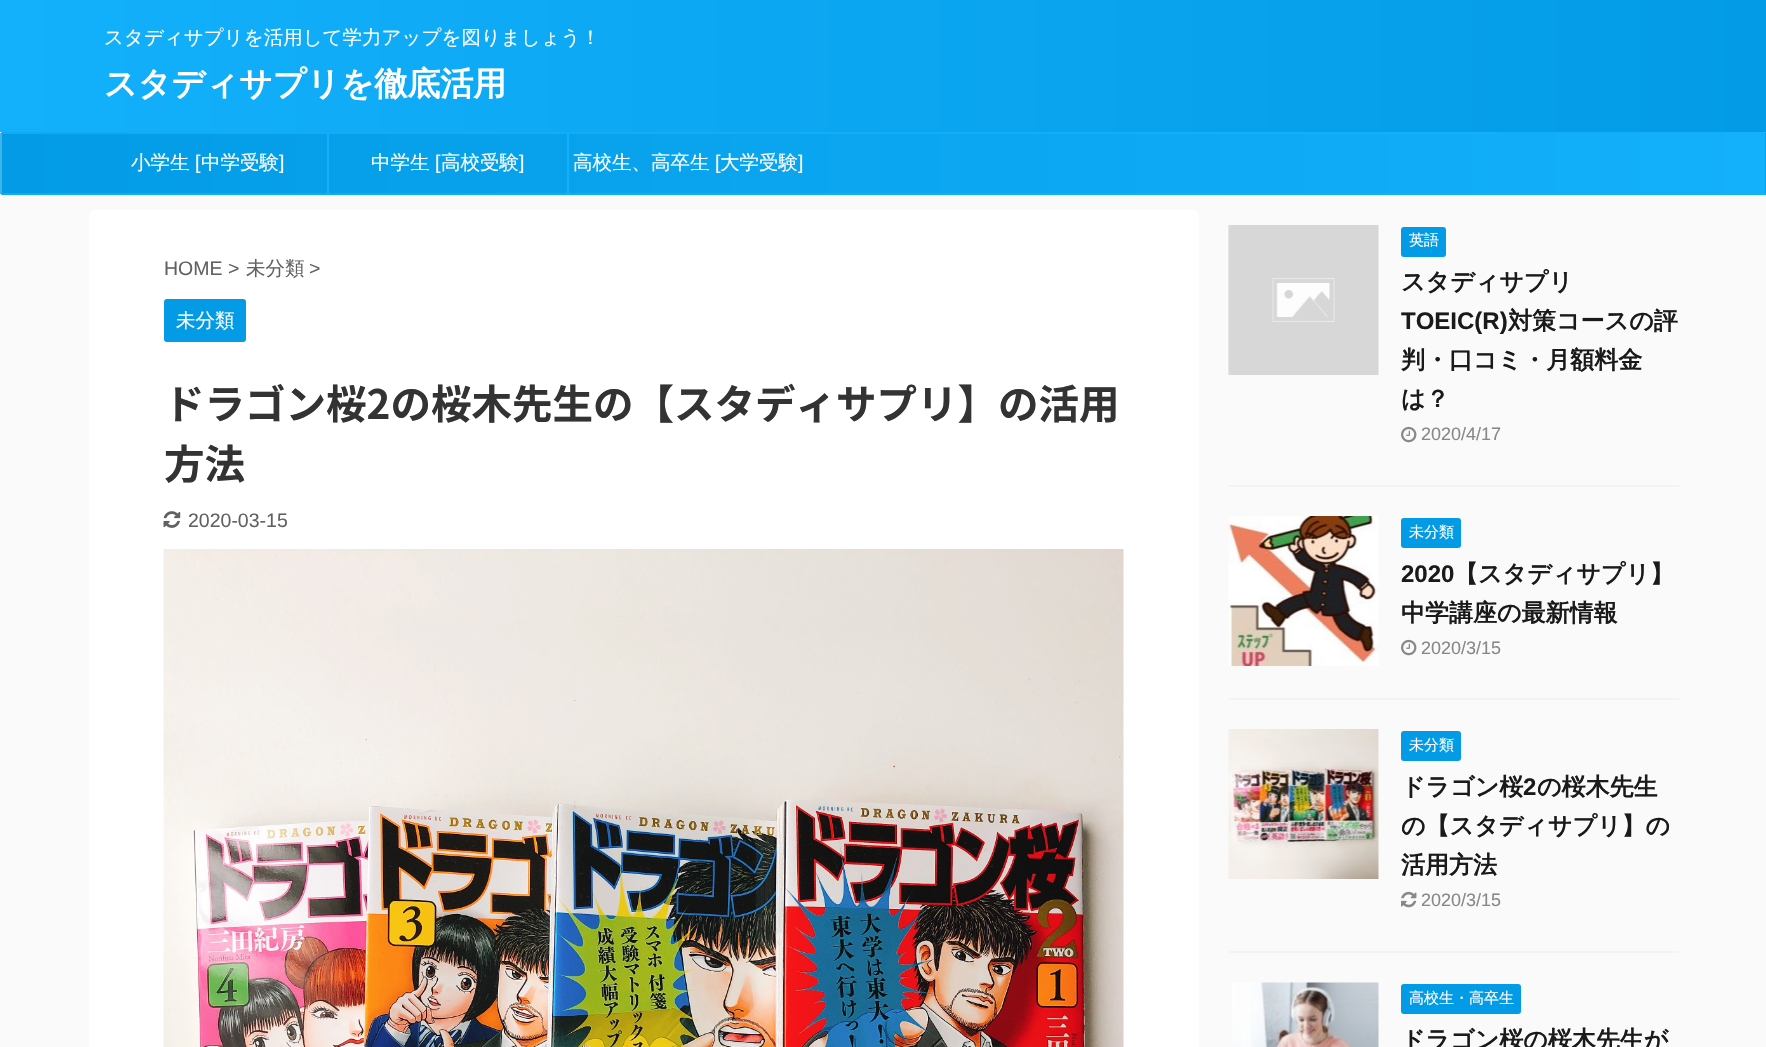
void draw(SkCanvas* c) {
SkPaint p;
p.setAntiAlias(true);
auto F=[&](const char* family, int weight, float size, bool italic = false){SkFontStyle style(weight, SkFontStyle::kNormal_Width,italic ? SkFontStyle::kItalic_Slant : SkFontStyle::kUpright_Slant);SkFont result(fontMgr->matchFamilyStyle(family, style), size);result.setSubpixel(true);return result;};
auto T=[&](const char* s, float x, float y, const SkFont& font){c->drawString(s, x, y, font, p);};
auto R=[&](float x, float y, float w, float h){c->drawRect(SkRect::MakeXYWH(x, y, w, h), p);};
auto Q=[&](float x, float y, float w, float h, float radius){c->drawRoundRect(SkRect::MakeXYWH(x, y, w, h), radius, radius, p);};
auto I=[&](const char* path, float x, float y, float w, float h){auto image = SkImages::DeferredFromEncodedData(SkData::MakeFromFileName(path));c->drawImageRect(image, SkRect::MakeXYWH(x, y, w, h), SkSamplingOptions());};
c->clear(0xfffafafa);
{
const SkColor colors[] = {0xff039be5,0xff13b0fc};
const float stops[] = {0,1};
const SkPoint ends[] = {{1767,66}, {0,66}};
p.setShader(SkGradientShader::MakeLinear(ends, colors, stops, 2, SkTileMode::kClamp));
p.setAlpha(255);
}
R(0,0,1766,132);
auto f1 = F("WenQuanYi Zen Hei",500,19.5);
p.setShader(nullptr);
p.setColor(0xffffffff);
T("スタディサプリを活用して学力アップを図りましょう！",104,44,f1);
auto f2 = F("WenQuanYi Zen Hei",700,33);
T("スタディサプリを徹底活用",104,95,f2);
{
const SkColor colors[] = {0xff13b0fc,0xff039be5};
const float stops[] = {0,1};
const SkPoint ends[] = {{1766,164}, {1.5,163}};
p.setShader(SkGradientShader::MakeLinear(ends, colors, stops, 2, SkTileMode::kClamp));
p.setAlpha(255);
}
R(2,132,1764,63);
p.setShader(nullptr);
p.setColor(0xbf13b0fc);
R(1,132,1497,2);
p.setColor(0xff07a0eb);
R(1765,133,1,61);
p.setColor(0xbf13b0fc);
R(1,193,1765,2);
p.setColor(0xbf039be5);
R(0,133,2,61);
p.setColor(0xff13b0fc);
R(327,134,2,60);
p.setColor(0xffffffff);
T("小学生",131,169,f1);
auto f3 = F("Liberation Sans",400,19.5);
T("[",195,169,f3);
T("中学受験",201,169,f1);
T("]",279,169,f3);
p.setColor(0xff13b0fc);
R(567,134,2,60);
p.setColor(0xffffffff);
T("中学生",371,169,f1);
T("[",435,169,f3);
T("高校受験",441,169,f1);
T("]",519,169,f3);
T("高校生、高卒生",573,169,f1);
T("[",715,169,f3);
T("大学受験",720,169,f1);
T("]",798,169,f3);
Q(89,210,1110,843,6);
p.setColor(0xff616161);
T("HOME >",164,275,f3);
T("未分類",246,275,f1);
T(">",309,275,f3);
p.setColor(0xff039be5);
Q(164,299,82,43,3);
p.setColor(0xffffffff);
T("未分類",176,327,f1);
auto f4 = F("Noto Sans JP",700,40.5);
p.setColor(0xff333333);
T("ドラゴン桜2の桜木先生の【スタディサプリ】の活用",164,419,f4);
T("方法",164,479,f4);
I("1.png",163,511,18,17);
p.setColor(0xff616161);
T("2020-03-15",188,527,f3);
I("2.png",163,549,961,498);
p.setColor(0xfff3f3f3);
R(1229,485,450,2);
I("3.png",1228,225,151,150);
p.setColor(0xff039be5);
Q(1401,227,45,30,3);
auto f5 = F("WenQuanYi Zen Hei",500,15);
p.setColor(0xffffffff);
T("英語",1409,245,f5);
auto f6 = F("WenQuanYi Zen Hei",700,24);
p.setColor(0xff1a1a1a);
T("スタディサプリ",1401,290,f6);
auto f7 = F("Liberation Sans",700,24);
T("TOEIC(R)",1401,329,f7);
T("対策コースの評",1508,329,f6);
T("判・口コミ・月額料金",1401,368,f6);
T("は？",1401,407,f6);
I("4.png",1401,426,16,17);
auto f8 = F("Liberation Sans",400,18);
p.setColor(0xff888888);
T("2020/4/17",1421,440,f8);
p.setColor(0xfff3f3f3);
R(1229,698,450,2);
I("5.png",1228,516,151,150);
p.setColor(0xff039be5);
Q(1401,518,60,30,3);
p.setColor(0xffffffff);
T("未分類",1409,537,f5);
p.setColor(0xff1a1a1a);
T("2020",1401,582,f7);
T("【スタディサプリ】",1454,582,f6);
T("中学講座の最新情報",1401,621,f6);
I("4.png",1401,639,16,17);
p.setColor(0xff888888);
T("2020/3/15",1421,654,f8);
p.setColor(0xfff3f3f3);
R(1229,951,450,2);
I("6.png",1228,729,151,150);
p.setColor(0xff039be5);
Q(1401,731,60,30,3);
p.setColor(0xffffffff);
T("未分類",1409,750,f5);
p.setColor(0xff1a1a1a);
T("ドラゴン桜",1401,795,f6);
T("2",1523,795,f7);
T("の桜木先生",1537,795,f6);
T("の【スタディサプリ】の",1401,834,f6);
T("活用方法",1401,873,f6);
I("7.png",1401,891,16,17);
p.setColor(0xff888888);
T("2020/3/15",1421,906,f8);
I("8.png",1232,982,147,65);
p.setColor(0xff039be5);
Q(1401,984,120,30,3);
p.setColor(0xffffffff);
T("高校生・高卒生",1409,1003,f5);
p.setColor(0xff1a1a1a);
T("ドラゴン桜の桜木先生が",1401,1048,f6);
}
